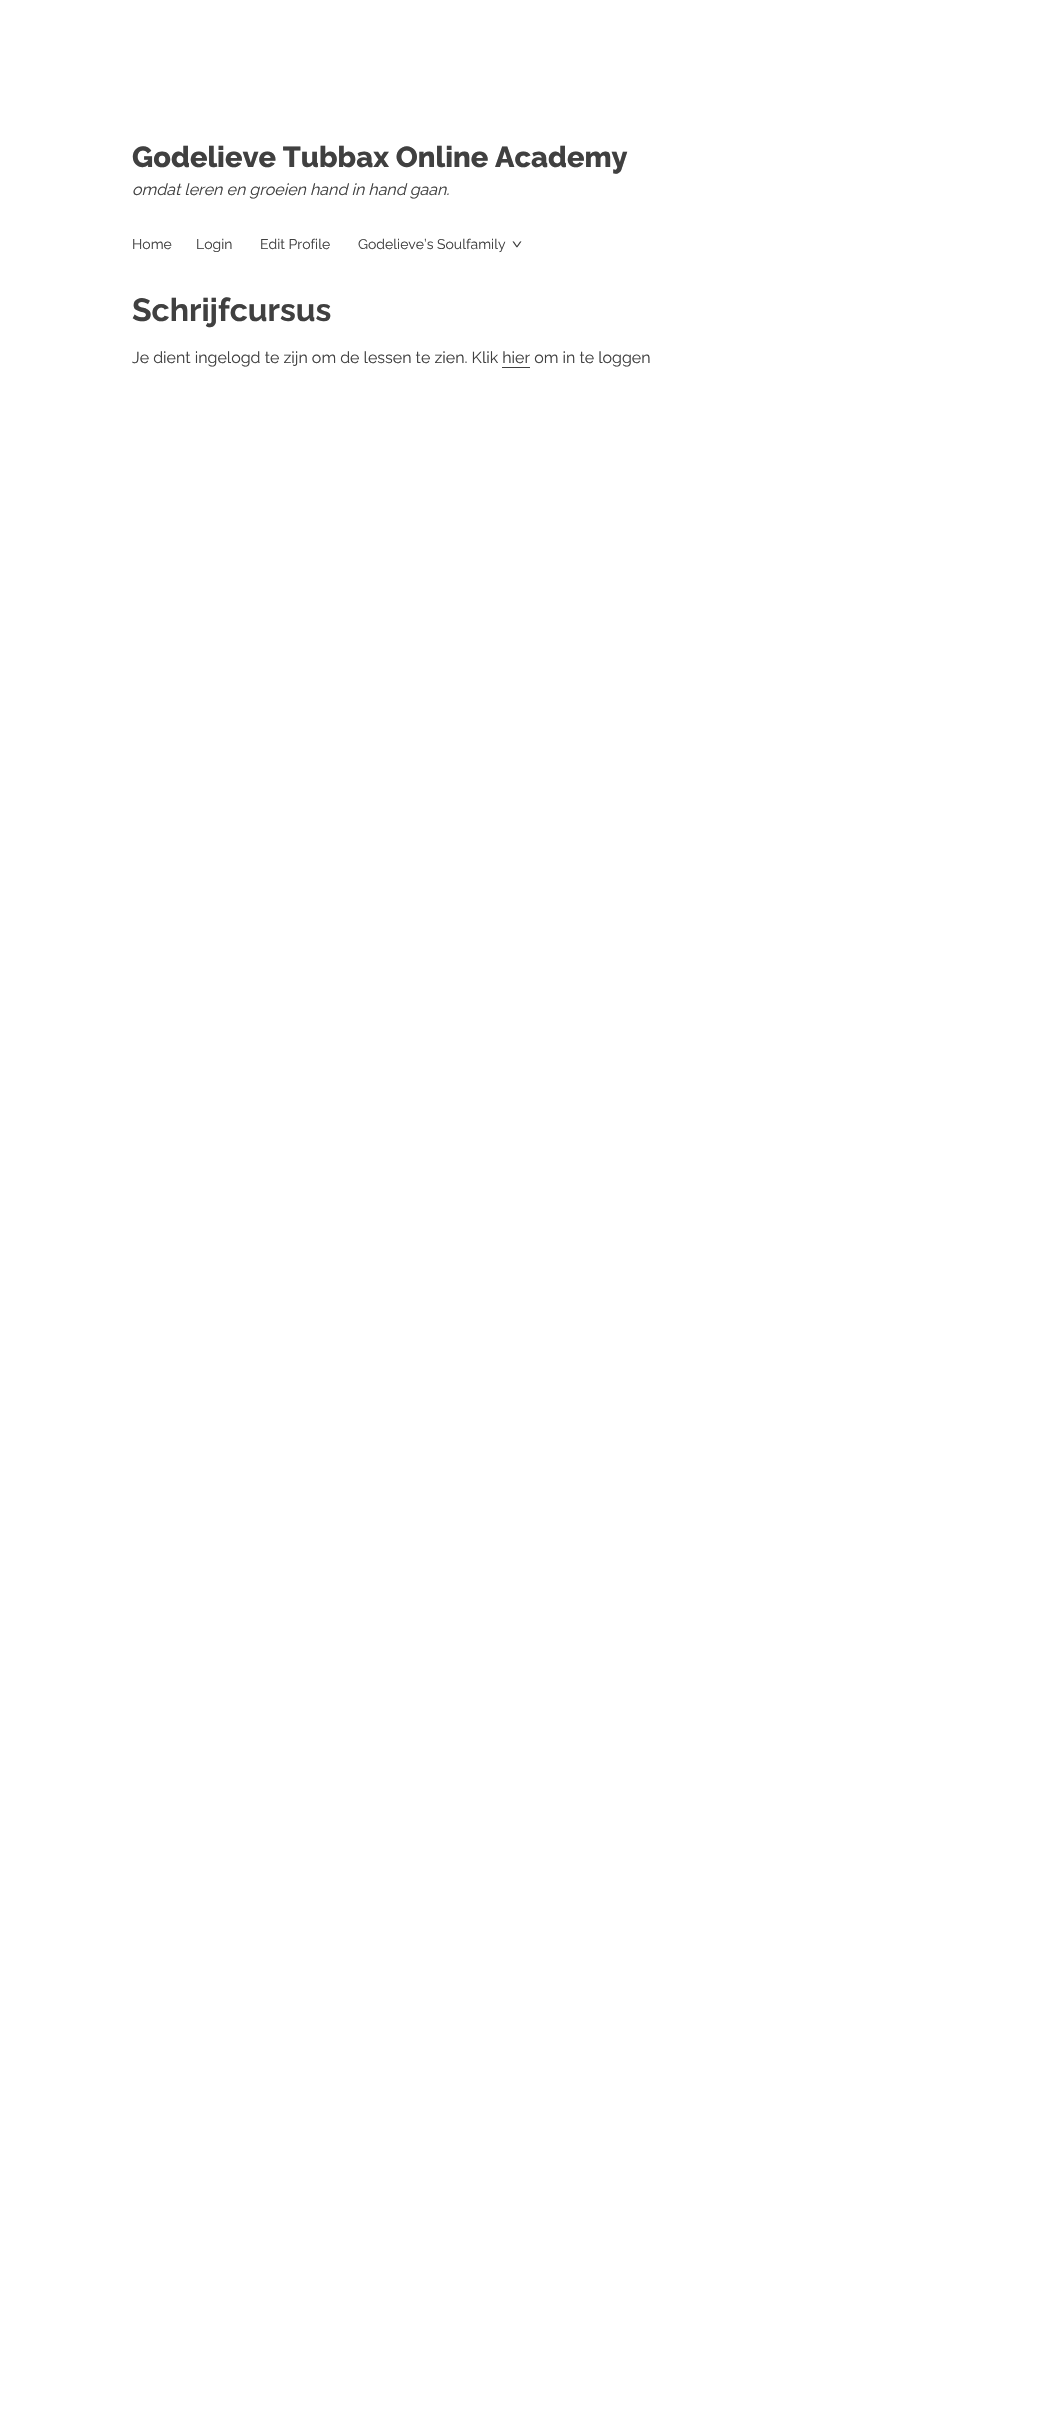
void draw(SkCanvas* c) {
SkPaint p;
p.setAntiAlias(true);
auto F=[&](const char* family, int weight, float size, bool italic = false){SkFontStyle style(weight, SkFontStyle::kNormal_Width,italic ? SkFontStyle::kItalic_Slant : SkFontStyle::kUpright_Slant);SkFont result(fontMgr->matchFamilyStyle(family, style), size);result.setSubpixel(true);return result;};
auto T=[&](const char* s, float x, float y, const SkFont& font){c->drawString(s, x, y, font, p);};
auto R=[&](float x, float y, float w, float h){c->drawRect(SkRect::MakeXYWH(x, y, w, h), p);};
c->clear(0xffffffff);
auto f1 = F("Raleway",800,29);
p.setColor(0xff404040);
T("Godelieve Tubbax Online Academy",132,167,f1);
auto f2 = F("Raleway",400,16,true);
T("omdat leren en groeien hand in hand gaan.",132,195,f2);
auto f3 = F("Raleway",400,14);
T("Home",132,249,f3);
T("Login",196,249,f3);
T("Edit Profile",260,249,f3);
T("Godelieve’s Soulfamily",358,249,f3);
auto f4 = F("Raleway",400,23);
c->save();
c->rotate(90,511,240);
T("›",511,240,f4);
c->restore();
auto f5 = F("Raleway",700,32);
T("Schrijfcursus",132,321,f5);
auto f6 = F("Raleway",400,16);
T("Je dient ingelogd te zijn om de lessen te zien. Klik hier om in te loggen",132,363,f6);
R(502,367,28,1);
}
